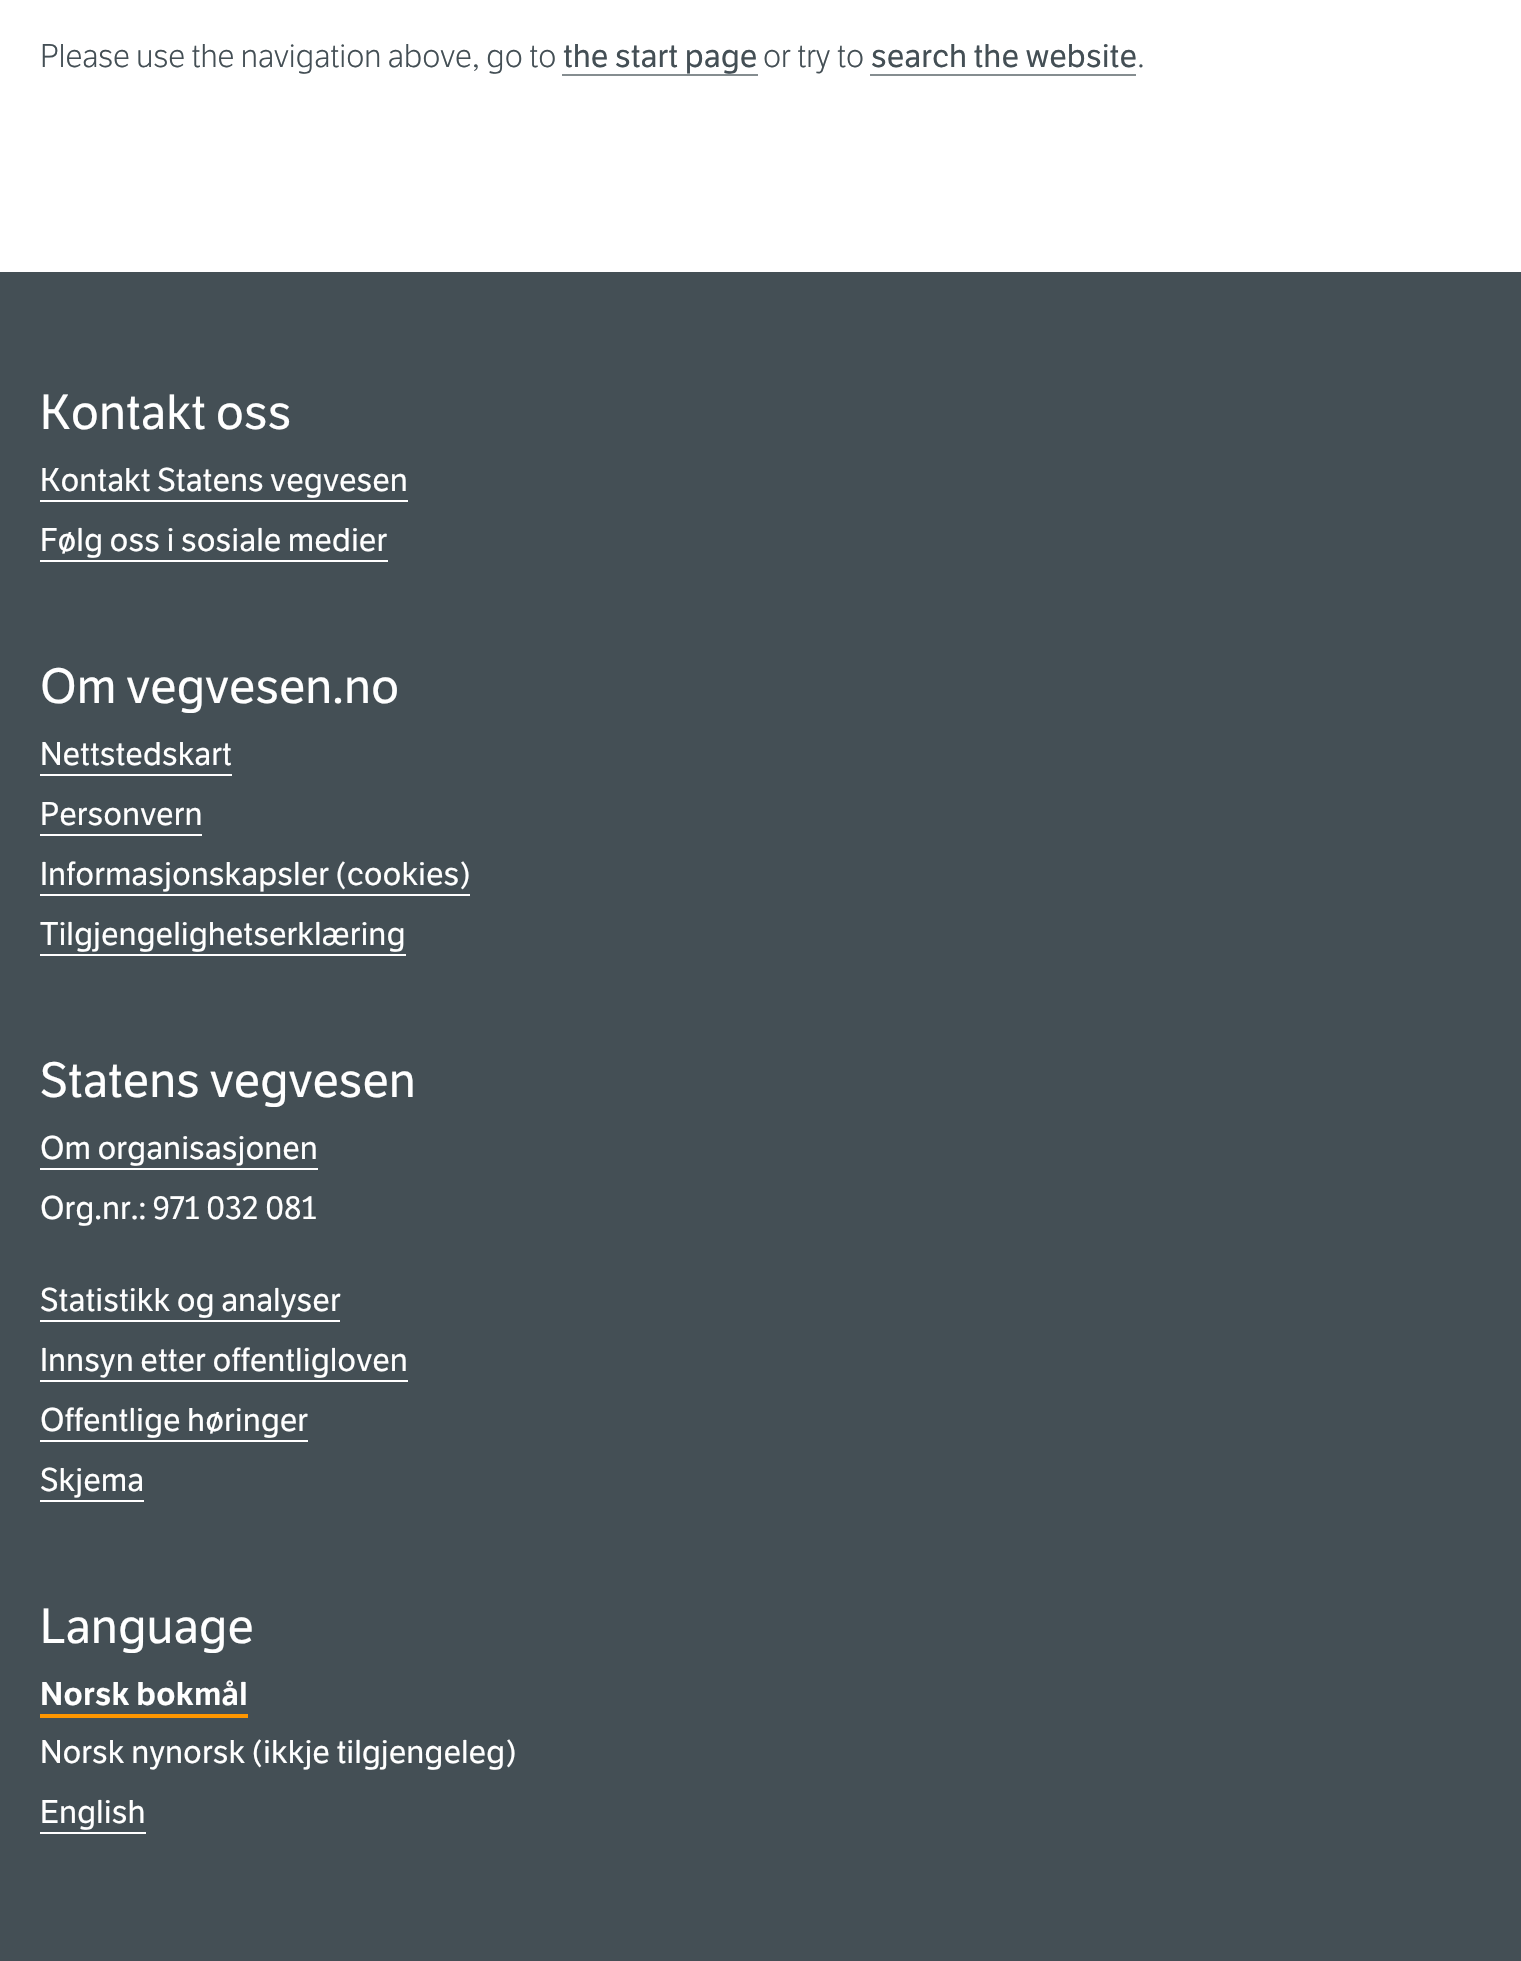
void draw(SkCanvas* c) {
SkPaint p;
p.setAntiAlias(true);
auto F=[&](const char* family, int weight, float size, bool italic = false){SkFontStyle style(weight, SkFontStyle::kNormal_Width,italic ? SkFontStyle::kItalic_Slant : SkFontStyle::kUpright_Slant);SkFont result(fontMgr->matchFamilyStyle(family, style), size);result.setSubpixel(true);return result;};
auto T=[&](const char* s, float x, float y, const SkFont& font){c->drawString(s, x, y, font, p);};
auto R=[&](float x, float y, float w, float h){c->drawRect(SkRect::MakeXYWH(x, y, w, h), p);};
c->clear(0xffffffff);
auto f1 = F("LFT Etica",300,32);
p.setColor(0xff444f55);
T("Please use the navigation above, go to",40,67,f1);
auto f2 = F("LFT Etica",400,32);
T("the start page",563,67,f2);
p.setColor(0xff858d90);
R(562,74,196,2);
p.setColor(0xff444f55);
T("or try to",763,67,f1);
T("search the website",871,67,f2);
p.setColor(0xff858d90);
R(870,74,266,2);
p.setColor(0xff444f55);
T(".",1137,67,f1);
R(0,272,1521,1689);
auto f3 = F("LFT Etica",400,48);
p.setColor(0xffffffff);
T("Kontakt oss",40,429,f3);
T("Kontakt Statens vegvesen",40,491,f2);
R(40,500,368,2);
T("Følg oss i sosiale medier",40,551,f2);
R(40,560,348,2);
T("Om vegvesen.no",40,703,f3);
T("Nettstedskart",40,765,f2);
R(40,774,192,2);
T("Personvern",40,825,f2);
R(40,834,162,2);
T("Informasjonskapsler (cookies)",40,885,f2);
R(40,894,430,2);
T("Tilgjengelighetserklæring",40,945,f2);
R(40,954,366,2);
T("Statens vegvesen",40,1097,f3);
T("Om organisasjonen",40,1159,f2);
R(40,1168,278,2);
T("Org.nr.: 971 032 081",40,1219,f2);
T("Statistikk og analyser",40,1311,f2);
R(40,1320,300,2);
T("Innsyn etter offentligloven",40,1371,f2);
R(40,1380,368,2);
T("Offentlige høringer",40,1431,f2);
R(40,1440,268,2);
T("Skjema",40,1491,f2);
R(40,1500,104,2);
T("Language",40,1643,f3);
auto f4 = F("LFT Etica",600,32);
T("Norsk bokmål",40,1705,f4);
p.setColor(0xffff9600);
R(40,1714,208,4);
p.setColor(0xffffffff);
T("Norsk nynorsk (ikkje tilgjengeleg)",40,1763,f2);
T("English",40,1823,f2);
R(40,1832,106,2);
}
